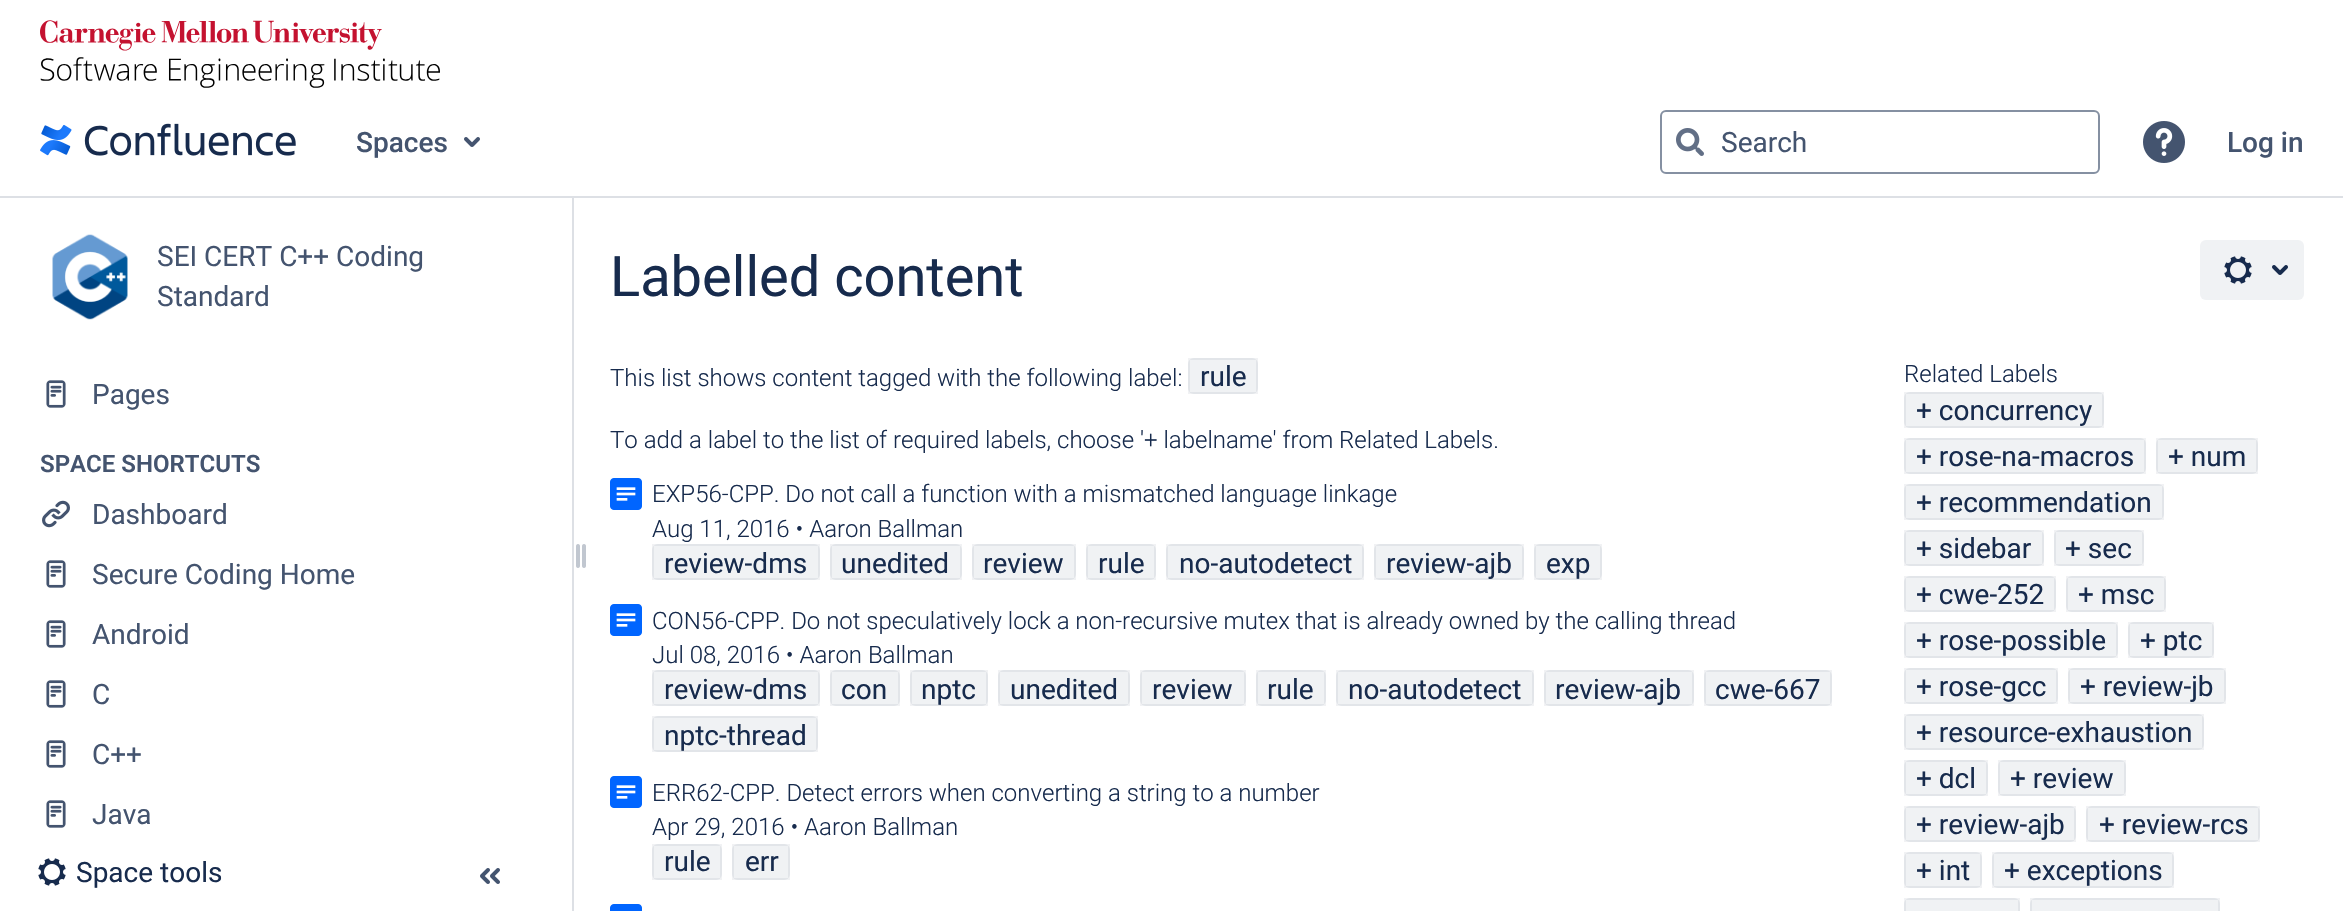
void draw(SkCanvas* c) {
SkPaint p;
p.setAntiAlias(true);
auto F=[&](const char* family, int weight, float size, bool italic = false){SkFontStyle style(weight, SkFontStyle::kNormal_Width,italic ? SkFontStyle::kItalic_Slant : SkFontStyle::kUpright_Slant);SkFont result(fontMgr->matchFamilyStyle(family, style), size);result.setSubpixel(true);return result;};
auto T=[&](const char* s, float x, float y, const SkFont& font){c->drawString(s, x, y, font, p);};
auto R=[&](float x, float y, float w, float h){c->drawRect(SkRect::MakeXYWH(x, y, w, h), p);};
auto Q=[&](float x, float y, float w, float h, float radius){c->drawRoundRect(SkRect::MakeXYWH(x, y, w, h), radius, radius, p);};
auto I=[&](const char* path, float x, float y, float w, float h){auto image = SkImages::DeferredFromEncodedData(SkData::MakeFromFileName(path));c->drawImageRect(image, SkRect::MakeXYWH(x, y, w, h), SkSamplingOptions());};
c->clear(0xffffffff);
I("1.png",40,20,400,68);
p.setColor(0xffdde0e5);
R(0,196,2343,2);
I("2.png",40,123,256,33);
auto f1 = F("Roboto",500,28);
p.setColor(0xff44546f);
T("Spaces",356,152,f1);
I("3.png",464,137,16,10);
p.setStroke(true);
p.setStrokeWidth(2);
p.setColor(0xff8590a2);
c->drawRoundRect(SkRect::MakeXYWH(1661,111,438,62),5,5,p);
I("4.png",1676,128,28,28);
auto f2 = F("Roboto",400,28);
p.setStroke(false);
p.setColor(0xff44546f);
T("Search",1721,152,f2);
I("5.png",2143,121,42,42);
T("Log in",2227,152,f1);
I("6.png",52,234,76,86);
T("SEI CERT C++ Coding",157,266,f2);
T("Standard",157,306,f2);
I("7.png",46,380,20,28);
T("Pages",92,404,f2);
auto f3 = F("Roboto",600,24);
T("SPACE SHORTCUTS",40,472,f3);
I("8.png",42,500,28,28);
T("Dashboard",92,524,f2);
I("7.png",46,560,20,28);
T("Secure Coding Home",92,584,f2);
I("7.png",46,620,20,28);
T("Android",92,644,f2);
I("7.png",46,680,20,28);
T("C",92,704,f2);
I("7.png",46,740,20,28);
T("C++",92,764,f2);
I("7.png",46,800,20,28);
T("Java",92,824,f2);
I("9.png",576,544,10,24);
p.setColor(0xffdde0e5);
R(572,198,2,713);
I("10.png",38,858,28,28);
p.setColor(0xff172b4d);
T("Space tools",76,882,f2);
I("11.png",480,868,20,16);
auto f4 = F("Roboto",400,56);
T("Labelled content",610,296,f4);
p.setColor(0xfff0f2f4);
Q(2200,240,104,60,6);
I("12.png",2224,256,28,28);
I("13.png",2272,265,16,10);
auto f5 = F("Roboto",300,24);
p.setColor(0xff172b4d);
T("This list shows content tagged with the following label:",610,386,f5);
p.setColor(0xfff0f2f4);
Q(1188,358,70,36,6);
p.setStroke(true);
p.setColor(0x0f091e42);
c->drawRect(SkRect::MakeXYWH(1189,359,68,34),p);
p.setStroke(false);
p.setColor(0xff172b4d);
T("rule",1200,386,f2);
T("To add a label to the list of required labels, choose '+ labelname' from Related Labels.",610,448,f5);
I("14.png",610,478,32,32);
T("EXP56-CPP. Do not call a function with a mismatched language linkage",652,502,f5);
T("Aug 11, 2016 • Aaron Ballman",652,537,f5);
p.setColor(0xfff0f2f4);
Q(652,544,168,36,6);
p.setStroke(true);
p.setColor(0x0f091e42);
c->drawRect(SkRect::MakeXYWH(653,545,166,34),p);
p.setStroke(false);
p.setColor(0xff172b4d);
T("review-dms",664,573,f2);
p.setColor(0xfff0f2f4);
Q(830,544,132,36,6);
p.setStroke(true);
p.setColor(0x0f091e42);
c->drawRect(SkRect::MakeXYWH(831,545,130,34),p);
p.setStroke(false);
p.setColor(0xff172b4d);
T("unedited",841,573,f2);
p.setColor(0xfff0f2f4);
Q(972,544,104,36,6);
p.setStroke(true);
p.setColor(0x0f091e42);
c->drawRect(SkRect::MakeXYWH(973,545,102,34),p);
p.setStroke(false);
p.setColor(0xff172b4d);
T("review",983,573,f2);
p.setColor(0xfff0f2f4);
Q(1086,544,70,36,6);
p.setStroke(true);
p.setColor(0x0f091e42);
c->drawRect(SkRect::MakeXYWH(1087,545,68,34),p);
p.setStroke(false);
p.setColor(0xff172b4d);
T("rule",1098,573,f2);
p.setColor(0xfff0f2f4);
Q(1166,544,198,36,6);
p.setStroke(true);
p.setColor(0x0f091e42);
c->drawRect(SkRect::MakeXYWH(1167,545,196,34),p);
p.setStroke(false);
p.setColor(0xff172b4d);
T("no-autodetect",1179,573,f2);
p.setColor(0xfff0f2f4);
Q(1374,544,150,36,6);
p.setStroke(true);
p.setColor(0x0f091e42);
c->drawRect(SkRect::MakeXYWH(1375,545,148,34),p);
p.setStroke(false);
p.setColor(0xff172b4d);
T("review-ajb",1386,573,f2);
p.setColor(0xfff0f2f4);
Q(1534,544,68,36,6);
p.setStroke(true);
p.setColor(0x0f091e42);
c->drawRect(SkRect::MakeXYWH(1535,545,66,34),p);
p.setStroke(false);
p.setColor(0xff172b4d);
T("exp",1546,573,f2);
I("14.png",610,604,32,32);
T("CON56-CPP. Do not speculatively lock a non-recursive mutex that is already owned by the calling thread",652,629,f5);
T("Jul 08, 2016 • Aaron Ballman",652,663,f5);
p.setColor(0xfff0f2f4);
Q(652,670,168,36,6);
p.setStroke(true);
p.setColor(0x0f091e42);
c->drawRect(SkRect::MakeXYWH(653,671,166,34),p);
p.setStroke(false);
p.setColor(0xff172b4d);
T("review-dms",664,699,f2);
p.setColor(0xfff0f2f4);
Q(830,670,70,36,6);
p.setStroke(true);
p.setColor(0x0f091e42);
c->drawRect(SkRect::MakeXYWH(831,671,68,34),p);
p.setStroke(false);
p.setColor(0xff172b4d);
T("con",841,699,f2);
p.setColor(0xfff0f2f4);
Q(910,670,78,36,6);
p.setStroke(true);
p.setColor(0x0f091e42);
c->drawRect(SkRect::MakeXYWH(911,671,76,34),p);
p.setStroke(false);
p.setColor(0xff172b4d);
T("nptc",921,699,f2);
p.setColor(0xfff0f2f4);
Q(998,670,132,36,6);
p.setStroke(true);
p.setColor(0x0f091e42);
c->drawRect(SkRect::MakeXYWH(999,671,130,34),p);
p.setStroke(false);
p.setColor(0xff172b4d);
T("unedited",1010,699,f2);
p.setColor(0xfff0f2f4);
Q(1140,670,106,36,6);
p.setStroke(true);
p.setColor(0x0f091e42);
c->drawRect(SkRect::MakeXYWH(1141,671,104,34),p);
p.setStroke(false);
p.setColor(0xff172b4d);
T("review",1152,699,f2);
p.setColor(0xfff0f2f4);
Q(1256,670,70,36,6);
p.setStroke(true);
p.setColor(0x0f091e42);
c->drawRect(SkRect::MakeXYWH(1257,671,68,34),p);
p.setStroke(false);
p.setColor(0xff172b4d);
T("rule",1267,699,f2);
p.setColor(0xfff0f2f4);
Q(1336,670,198,36,6);
p.setStroke(true);
p.setColor(0x0f091e42);
c->drawRect(SkRect::MakeXYWH(1337,671,196,34),p);
p.setStroke(false);
p.setColor(0xff172b4d);
T("no-autodetect",1348,699,f2);
p.setColor(0xfff0f2f4);
Q(1544,670,150,36,6);
p.setStroke(true);
p.setColor(0x0f091e42);
c->drawRect(SkRect::MakeXYWH(1545,671,148,34),p);
p.setStroke(false);
p.setColor(0xff172b4d);
T("review-ajb",1555,699,f2);
p.setColor(0xfff0f2f4);
Q(1704,670,128,36,6);
p.setStroke(true);
p.setColor(0x0f091e42);
c->drawRect(SkRect::MakeXYWH(1705,671,126,34),p);
p.setStroke(false);
p.setColor(0xff172b4d);
T("cwe-667",1715,699,f2);
p.setColor(0xfff0f2f4);
Q(652,716,166,36,6);
p.setStroke(true);
p.setColor(0x0f091e42);
c->drawRect(SkRect::MakeXYWH(653,717,164,34),p);
p.setStroke(false);
p.setColor(0xff172b4d);
T("nptc-thread",664,745,f2);
I("14.png",610,776,32,32);
T("ERR62-CPP. Detect errors when converting a string to a number",652,801,f5);
T("Apr 29, 2016 • Aaron Ballman",652,835,f5);
p.setColor(0xfff0f2f4);
Q(652,844,70,36,6);
p.setStroke(true);
p.setColor(0x0f091e42);
c->drawRect(SkRect::MakeXYWH(653,845,68,34),p);
p.setStroke(false);
p.setColor(0xff172b4d);
T("rule",664,871,f2);
p.setColor(0xfff0f2f4);
Q(732,844,58,36,6);
p.setStroke(true);
p.setColor(0x0f091e42);
c->drawRect(SkRect::MakeXYWH(733,845,56,34),p);
p.setStroke(false);
p.setColor(0xff172b4d);
T("err",745,871,f2);
I("15.png",610,904,32,7);
T("Related Labels",1904,382,f5);
p.setColor(0xfff0f2f4);
Q(1904,392,200,36,6);
p.setStroke(true);
p.setColor(0x0f091e42);
c->drawRect(SkRect::MakeXYWH(1905,393,198,34),p);
p.setStroke(false);
p.setColor(0xff172b4d);
T("+ concurrency",1916,420,f2);
p.setColor(0xfff0f2f4);
Q(1904,438,242,36,6);
p.setStroke(true);
p.setColor(0x0f091e42);
c->drawRect(SkRect::MakeXYWH(1905,439,240,34),p);
p.setStroke(false);
p.setColor(0xff172b4d);
T("+ rose-na-macros",1916,466,f2);
p.setColor(0xfff0f2f4);
Q(2156,438,102,36,6);
p.setStroke(true);
p.setColor(0x0f091e42);
c->drawRect(SkRect::MakeXYWH(2157,439,100,34),p);
p.setStroke(false);
p.setColor(0xff172b4d);
T("+ num",2168,466,f2);
p.setColor(0xfff0f2f4);
Q(1904,484,260,36,6);
p.setStroke(true);
p.setColor(0x0f091e42);
c->drawRect(SkRect::MakeXYWH(1905,485,258,34),p);
p.setStroke(false);
p.setColor(0xff172b4d);
T("+ recommendation",1916,512,f2);
p.setColor(0xfff0f2f4);
Q(1904,530,140,36,6);
p.setStroke(true);
p.setColor(0x0f091e42);
c->drawRect(SkRect::MakeXYWH(1905,531,138,34),p);
p.setStroke(false);
p.setColor(0xff172b4d);
T("+ sidebar",1916,558,f2);
p.setColor(0xfff0f2f4);
Q(2054,530,90,36,6);
p.setStroke(true);
p.setColor(0x0f091e42);
c->drawRect(SkRect::MakeXYWH(2055,531,88,34),p);
p.setStroke(false);
p.setColor(0xff172b4d);
T("+ sec",2065,558,f2);
p.setColor(0xfff0f2f4);
Q(1904,576,152,36,6);
p.setStroke(true);
p.setColor(0x0f091e42);
c->drawRect(SkRect::MakeXYWH(1905,577,150,34),p);
p.setStroke(false);
p.setColor(0xff172b4d);
T("+ cwe-252",1916,604,f2);
p.setColor(0xfff0f2f4);
Q(2066,576,100,36,6);
p.setStroke(true);
p.setColor(0x0f091e42);
c->drawRect(SkRect::MakeXYWH(2067,577,98,34),p);
p.setStroke(false);
p.setColor(0xff172b4d);
T("+ msc",2078,604,f2);
p.setColor(0xfff0f2f4);
Q(1904,622,214,36,6);
p.setStroke(true);
p.setColor(0x0f091e42);
c->drawRect(SkRect::MakeXYWH(1905,623,212,34),p);
p.setStroke(false);
p.setColor(0xff172b4d);
T("+ rose-possible",1916,650,f2);
p.setColor(0xfff0f2f4);
Q(2128,622,86,36,6);
p.setStroke(true);
p.setColor(0x0f091e42);
c->drawRect(SkRect::MakeXYWH(2129,623,84,34),p);
p.setStroke(false);
p.setColor(0xff172b4d);
T("+ ptc",2140,650,f2);
p.setColor(0xfff0f2f4);
Q(1904,668,154,36,6);
p.setStroke(true);
p.setColor(0x0f091e42);
c->drawRect(SkRect::MakeXYWH(1905,669,152,34),p);
p.setStroke(false);
p.setColor(0xff172b4d);
T("+ rose-gcc",1916,696,f2);
p.setColor(0xfff0f2f4);
Q(2068,668,158,36,6);
p.setStroke(true);
p.setColor(0x0f091e42);
c->drawRect(SkRect::MakeXYWH(2069,669,156,34),p);
p.setStroke(false);
p.setColor(0xff172b4d);
T("+ review-jb",2080,696,f2);
p.setColor(0xfff0f2f4);
Q(1904,714,300,36,6);
p.setStroke(true);
p.setColor(0x0f091e42);
c->drawRect(SkRect::MakeXYWH(1905,715,298,34),p);
p.setStroke(false);
p.setColor(0xff172b4d);
T("+ resource-exhaustion",1916,742,f2);
p.setColor(0xfff0f2f4);
Q(1904,760,84,36,6);
p.setStroke(true);
p.setColor(0x0f091e42);
c->drawRect(SkRect::MakeXYWH(1905,761,82,34),p);
p.setStroke(false);
p.setColor(0xff172b4d);
T("+ dcl",1916,788,f2);
p.setColor(0xfff0f2f4);
Q(1998,760,128,36,6);
p.setStroke(true);
p.setColor(0x0f091e42);
c->drawRect(SkRect::MakeXYWH(1999,761,126,34),p);
p.setStroke(false);
p.setColor(0xff172b4d);
T("+ review",2010,788,f2);
p.setColor(0xfff0f2f4);
Q(1904,806,172,36,6);
p.setStroke(true);
p.setColor(0x0f091e42);
c->drawRect(SkRect::MakeXYWH(1905,807,170,34),p);
p.setStroke(false);
p.setColor(0xff172b4d);
T("+ review-ajb",1916,834,f2);
p.setColor(0xfff0f2f4);
Q(2086,806,174,36,6);
p.setStroke(true);
p.setColor(0x0f091e42);
c->drawRect(SkRect::MakeXYWH(2087,807,172,34),p);
p.setStroke(false);
p.setColor(0xff172b4d);
T("+ review-rcs",2099,834,f2);
p.setColor(0xfff0f2f4);
Q(1904,852,78,36,6);
p.setStroke(true);
p.setColor(0x0f091e42);
c->drawRect(SkRect::MakeXYWH(1905,853,76,34),p);
p.setStroke(false);
p.setColor(0xff172b4d);
T("+ int",1916,880,f2);
p.setColor(0xfff0f2f4);
Q(1992,852,182,36,6);
p.setStroke(true);
p.setColor(0x0f091e42);
c->drawRect(SkRect::MakeXYWH(1993,853,180,34),p);
p.setStroke(false);
p.setColor(0xff172b4d);
T("+ exceptions",2004,880,f2);
p.setColor(0xfff0f2f4);
Q(1904,898,116,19,6);
p.setStroke(true);
p.setColor(0x0f091e42);
c->drawRect(SkRect::MakeXYWH(1905,899,114,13),p);
p.setStroke(false);
p.setColor(0xfff0f2f4);
Q(2030,898,190,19,6);
p.setStroke(true);
p.setColor(0x0f091e42);
c->drawRect(SkRect::MakeXYWH(2031,899,188,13),p);
}
